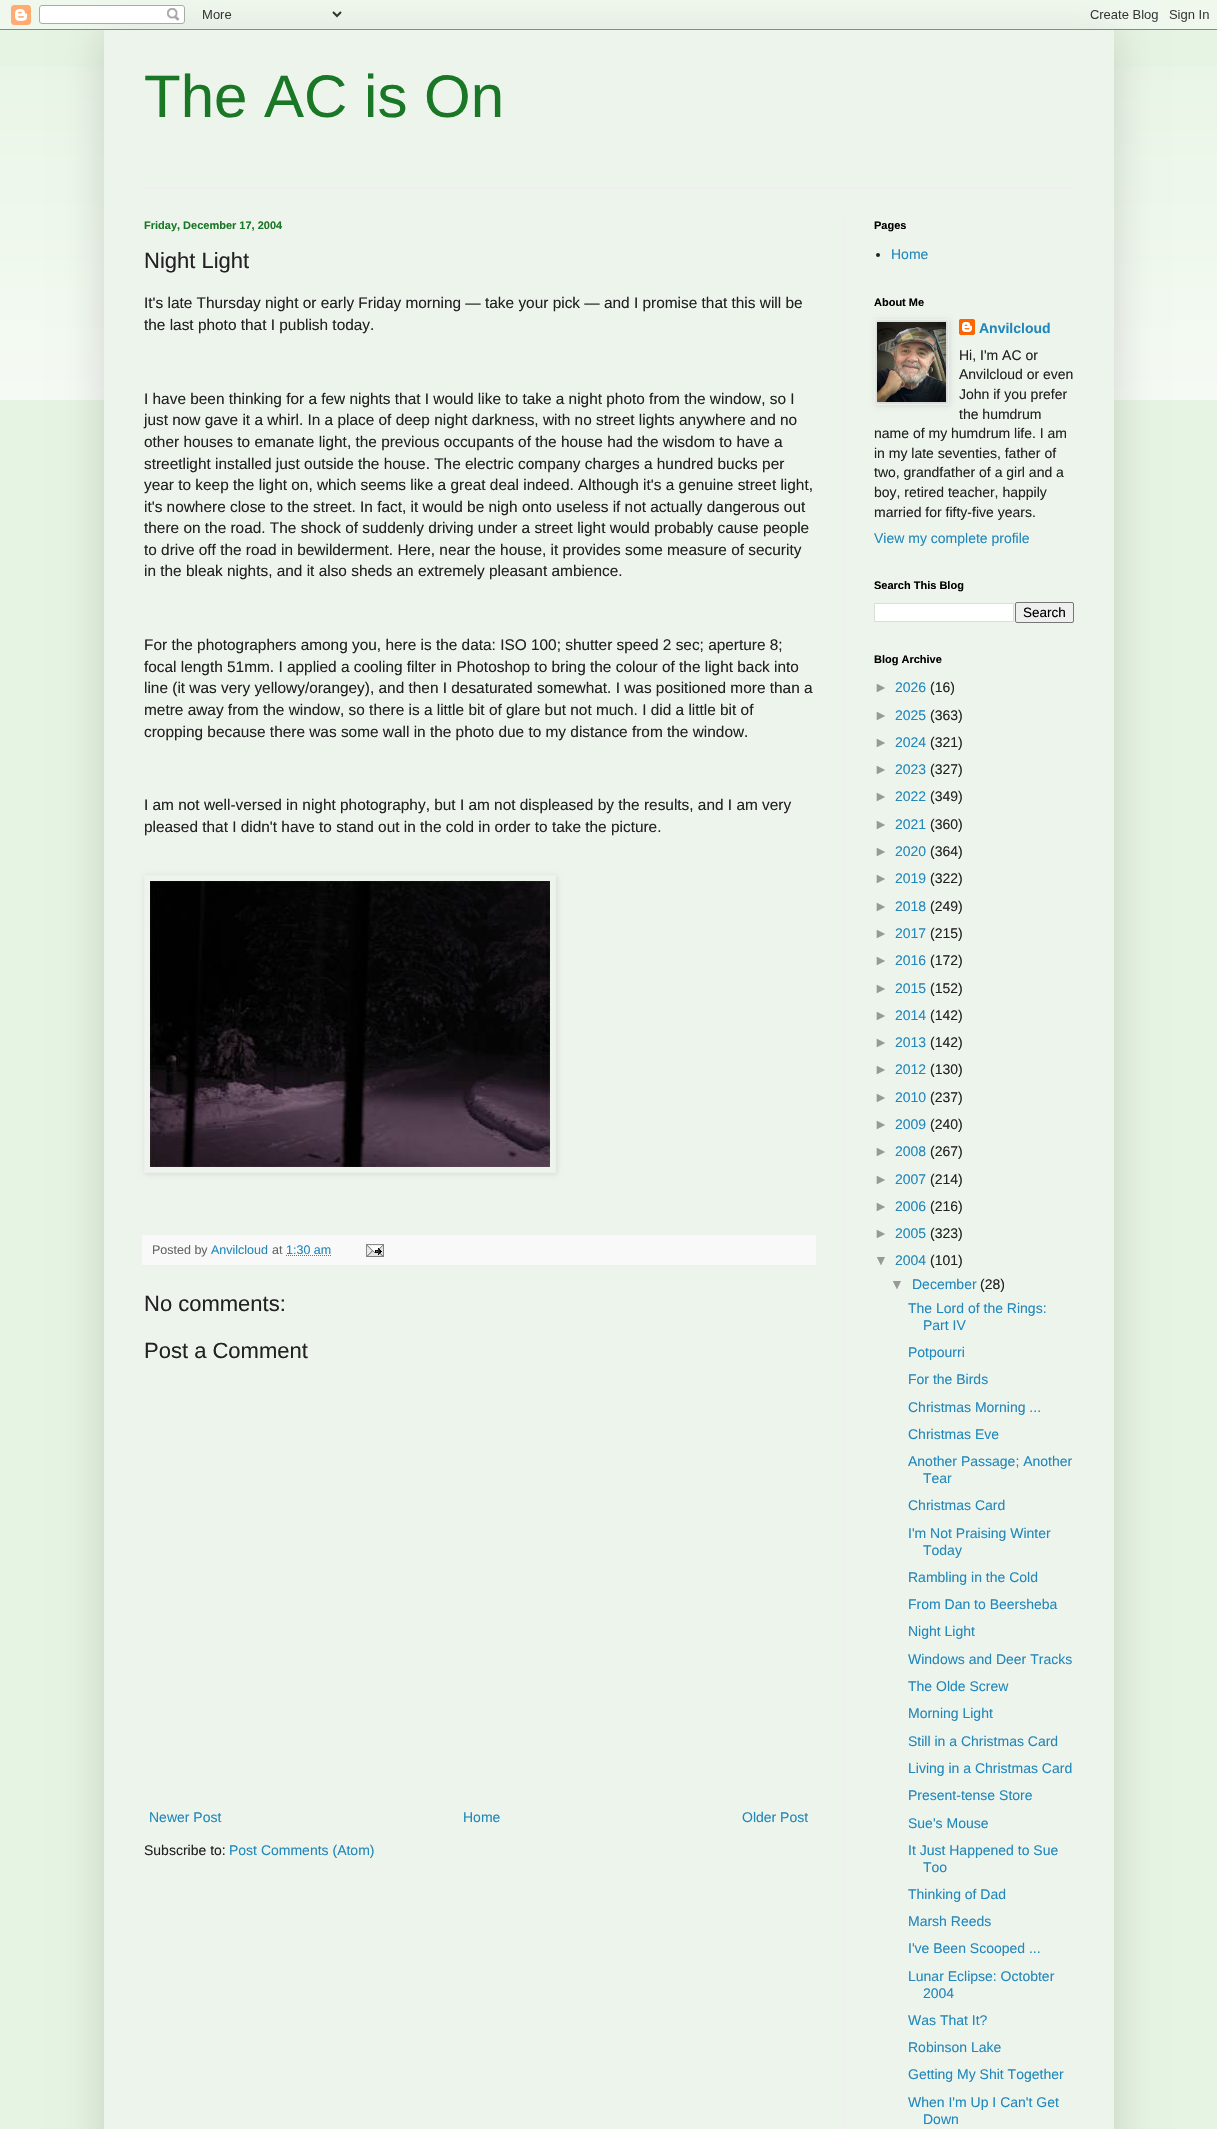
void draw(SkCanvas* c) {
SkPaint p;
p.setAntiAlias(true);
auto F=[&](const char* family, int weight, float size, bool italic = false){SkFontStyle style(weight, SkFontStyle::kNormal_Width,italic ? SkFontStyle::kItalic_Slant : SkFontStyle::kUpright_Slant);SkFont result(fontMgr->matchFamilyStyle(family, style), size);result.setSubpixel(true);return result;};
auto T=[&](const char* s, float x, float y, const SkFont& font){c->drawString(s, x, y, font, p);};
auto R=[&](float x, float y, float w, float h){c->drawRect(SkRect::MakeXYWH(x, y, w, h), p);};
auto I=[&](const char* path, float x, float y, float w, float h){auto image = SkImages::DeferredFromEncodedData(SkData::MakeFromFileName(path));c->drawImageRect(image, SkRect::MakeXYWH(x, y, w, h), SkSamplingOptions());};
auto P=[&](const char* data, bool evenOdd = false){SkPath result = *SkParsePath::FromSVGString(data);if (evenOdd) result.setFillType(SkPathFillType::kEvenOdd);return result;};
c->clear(0xffe6f4e3);
I("2.png",0,67,1217,333);
p.setColor(0x26000000);
p.setMaskFilter(SkMaskFilter::MakeBlur(kNormal_SkBlurStyle, 20));
c->drawRect(SkRect::MakeXYWH(104,30,1010,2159),p);
p.setMaskFilter(nullptr);
I("1.png",0,0,1217,30);
p.setColor(0xffedf4ec);
R(104,30,1010,2099);
auto f1 = F("Liberation Sans",400,60);
p.setColor(0xff1a7725);
T("The AC is On",144,117,f1);
p.setColor(0xffeeeeee);
R(144,188,930,1);
R(844,219,1,1910);
auto f2 = F("Liberation Sans",700,11);
p.setColor(0xff1a7725);
T("Friday, December 17, 2004",144,229,f2);
auto f3 = F("Liberation Sans",400,22);
p.setColor(0xff222222);
T("Night Light",144,268,f3);
auto f4 = F("Liberation Sans",400,15.4);
T("It's late Thursday night or early Friday morning — take your pick — and I promise that this will be",144,308,f4);
T("the last photo that I publish today.",144,330,f4);
T("I have been thinking for a few nights that I would like to take a night photo from the window, so I",144,404,f4);
T("just now gave it a whirl. In a place of deep night darkness, with no street lights anywhere and no",144,425,f4);
T("other houses to emanate light, the previous occupants of the house had the wisdom to have a",144,447,f4);
T("streetlight installed just outside the house. The electric company charges a hundred bucks per",144,469,f4);
T("year to keep the light on, which seems like a great deal indeed. Although it's a genuine street light,",144,490,f4);
T("it's nowhere close to the street. In fact, it would be nigh onto useless if not actually dangerous out",144,512,f4);
T("there on the road. The shock of suddenly driving under a street light would probably cause people",144,533,f4);
T("to drive off the road in bewilderment. Here, near the house, it provides some measure of security",144,555,f4);
T("in the bleak nights, and it also sheds an extremely pleasant ambience.",144,576,f4);
T("For the photographers among you, here is the data: ISO 100; shutter speed 2 sec; aperture 8;",144,650,f4);
T("focal length 51mm. I applied a cooling filter in Photoshop to bring the colour of the light back into",144,672,f4);
T("line (it was very yellowy/orangey), and then I desaturated somewhat. I was positioned more than a",144,693,f4);
T("metre away from the window, so there is a little bit of glare but not much. I did a little bit of",144,715,f4);
T("cropping because there was some wall in the photo due to my distance from the window.",144,737,f4);
T("I am not well-versed in night photography, but I am not displeased by the results, and I am very",144,810,f4);
T("pleased that I didn't have to stand out in the cold in order to take the picture.",144,832,f4);
c->save();
c->clipPath(P("M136 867h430v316h-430zm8 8h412v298h-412z",true),true);
p.setColor(0x1a000000);
p.setMaskFilter(SkMaskFilter::MakeBlur(kNormal_SkBlurStyle, 2.5));
c->drawRect(SkRect::MakeXYWH(145,876,412,298),p);
p.setMaskFilter(nullptr);
c->restore();
p.setStroke(true);
p.setStrokeWidth(1);
p.setColor(0xffeeeeee);
c->drawRect(SkRect::MakeXYWH(144.5,875.5,411,297),p);
I("3.png",150,881,400,286);
p.setStroke(false);
p.setColor(0xfff9f9f9);
R(142,1235,674,30);
p.setColor(0xffeeeeee);
R(142,1265,674,1);
auto f5 = F("Liberation Sans",400,12.5);
p.setColor(0xff666666);
T("Posted by",152,1254,f5);
p.setColor(0xff2288bb);
T("Anvilcloud",211,1254,f5);
p.setColor(0xff666666);
T("at",272,1254,f5);
p.setColor(0xff2288bb);
T("1:30 am",286,1254,f5);
p.setStroke(true);
p.setPathEffect(SkDashPathEffect::Make({{1,1}}, 0));
c->drawPath(P("M286 1255.5h45.5"),p);
p.setPathEffect(nullptr);
I("4.png",366,1244,18,13);
p.setStroke(false);
p.setColor(0xff222222);
T("No comments:",144,1311,f3);
T("Post a Comment",144,1358,f3);
auto f6 = F("Liberation Sans",400,14);
p.setColor(0xff2288bb);
T("Newer Post",149,1822,f6);
T("Home",463,1822,f6);
T("Older Post",742,1822,f6);
p.setColor(0xff222222);
T("Subscribe to:",144,1855,f6);
p.setColor(0xff2288bb);
T("Post Comments (Atom)",229,1855,f6);
p.setColor(0xff000000);
T("Pages",874,229,f2);
p.setColor(0xff222222);
c->drawCircle(878,255,2,p);
p.setColor(0xff2288bb);
T("Home",891,259,f6);
p.setColor(0xff000000);
T("About Me",874,306,f2);
p.setColor(0x1a000000);
p.setMaskFilter(SkMaskFilter::MakeBlur(kNormal_SkBlurStyle, 2.5));
c->drawRect(SkRect::MakeXYWH(875,320,75,86),p);
p.setMaskFilter(nullptr);
p.setStroke(true);
p.setColor(0xffeeeeee);
c->drawRect(SkRect::MakeXYWH(874.5,319.5,74,85),p);
I("5.png",877,322,69,80);
I("6.png",959,319,16,16);
auto f7 = F("Liberation Sans",700,14);
p.setStroke(false);
p.setColor(0xff2288bb);
T("Anvilcloud",979,333,f7);
p.setColor(0xff222222);
T("Hi, I'm AC or",959,360,f6);
T("Anvilcloud or even",959,379,f6);
T("John if you prefer",959,399,f6);
T("the humdrum",959,419,f6);
T("name of my humdrum life. I am",874,438,f6);
T("in my late seventies, father of",874,458,f6);
T("two, grandfather of a girl and a",874,477,f6);
T("boy, retired teacher, happily",874,497,f6);
T("married for fifty-five years.",874,517,f6);
p.setColor(0xff2288bb);
T("View my complete profile",874,543,f6);
p.setColor(0xff000000);
T("Search This Blog",874,589,f2);
p.setColor(0xffffffff);
c->drawRect(SkRect::MakeXYWH(874.5,603.5,139,18),p);
p.setStroke(true);
p.setColor(0xffdddddd);
c->drawRect(SkRect::MakeXYWH(874.5,603.5,139,18),p);
p.setStroke(false);
p.setColor(0xffefefef);
c->drawRoundRect(SkRect::MakeXYWH(1015.5,602.5,58,20),1.5,1.5,p);
p.setStroke(true);
p.setColor(0xff767676);
c->drawRoundRect(SkRect::MakeXYWH(1015.5,602.5,58,20),1.5,1.5,p);
auto f8 = F("Liberation Sans",400,13.5);
p.setStroke(false);
p.setColor(0xff000000);
T("Search",1023,617,f8);
T("Blog Archive",874,663,f2);
p.setColor(0xff999999);
T("►",874,692,f6);
p.setColor(0xff2288bb);
T("2026",895,692,f6);
p.setColor(0xff222222);
T("(16)",930,692,f6);
p.setColor(0xff999999);
T("►",874,720,f6);
p.setColor(0xff2288bb);
T("2025",895,720,f6);
p.setColor(0xff222222);
T("(363)",930,720,f6);
p.setColor(0xff999999);
T("►",874,747,f6);
p.setColor(0xff2288bb);
T("2024",895,747,f6);
p.setColor(0xff222222);
T("(321)",930,747,f6);
p.setColor(0xff999999);
T("►",874,774,f6);
p.setColor(0xff2288bb);
T("2023",895,774,f6);
p.setColor(0xff222222);
T("(327)",930,774,f6);
p.setColor(0xff999999);
T("►",874,801,f6);
p.setColor(0xff2288bb);
T("2022",895,801,f6);
p.setColor(0xff222222);
T("(349)",930,801,f6);
p.setColor(0xff999999);
T("►",874,829,f6);
p.setColor(0xff2288bb);
T("2021",895,829,f6);
p.setColor(0xff222222);
T("(360)",930,829,f6);
p.setColor(0xff999999);
T("►",874,856,f6);
p.setColor(0xff2288bb);
T("2020",895,856,f6);
p.setColor(0xff222222);
T("(364)",930,856,f6);
p.setColor(0xff999999);
T("►",874,883,f6);
p.setColor(0xff2288bb);
T("2019",895,883,f6);
p.setColor(0xff222222);
T("(322)",930,883,f6);
p.setColor(0xff999999);
T("►",874,911,f6);
p.setColor(0xff2288bb);
T("2018",895,911,f6);
p.setColor(0xff222222);
T("(249)",930,911,f6);
p.setColor(0xff999999);
T("►",874,938,f6);
p.setColor(0xff2288bb);
T("2017",895,938,f6);
p.setColor(0xff222222);
T("(215)",930,938,f6);
p.setColor(0xff999999);
T("►",874,965,f6);
p.setColor(0xff2288bb);
T("2016",895,965,f6);
p.setColor(0xff222222);
T("(172)",930,965,f6);
p.setColor(0xff999999);
T("►",874,993,f6);
p.setColor(0xff2288bb);
T("2015",895,993,f6);
p.setColor(0xff222222);
T("(152)",930,993,f6);
p.setColor(0xff999999);
T("►",874,1020,f6);
p.setColor(0xff2288bb);
T("2014",895,1020,f6);
p.setColor(0xff222222);
T("(142)",930,1020,f6);
p.setColor(0xff999999);
T("►",874,1047,f6);
p.setColor(0xff2288bb);
T("2013",895,1047,f6);
p.setColor(0xff222222);
T("(142)",930,1047,f6);
p.setColor(0xff999999);
T("►",874,1074,f6);
p.setColor(0xff2288bb);
T("2012",895,1074,f6);
p.setColor(0xff222222);
T("(130)",930,1074,f6);
p.setColor(0xff999999);
T("►",874,1102,f6);
p.setColor(0xff2288bb);
T("2010",895,1102,f6);
p.setColor(0xff222222);
T("(237)",930,1102,f6);
p.setColor(0xff999999);
T("►",874,1129,f6);
p.setColor(0xff2288bb);
T("2009",895,1129,f6);
p.setColor(0xff222222);
T("(240)",930,1129,f6);
p.setColor(0xff999999);
T("►",874,1156,f6);
p.setColor(0xff2288bb);
T("2008",895,1156,f6);
p.setColor(0xff222222);
T("(267)",930,1156,f6);
p.setColor(0xff999999);
T("►",874,1184,f6);
p.setColor(0xff2288bb);
T("2007",895,1184,f6);
p.setColor(0xff222222);
T("(214)",930,1184,f6);
p.setColor(0xff999999);
T("►",874,1211,f6);
p.setColor(0xff2288bb);
T("2006",895,1211,f6);
p.setColor(0xff222222);
T("(216)",930,1211,f6);
p.setColor(0xff999999);
T("►",874,1238,f6);
p.setColor(0xff2288bb);
T("2005",895,1238,f6);
p.setColor(0xff222222);
T("(323)",930,1238,f6);
p.setColor(0xff999999);
T("▼",874,1265,f6);
p.setColor(0xff2288bb);
T("2004",895,1265,f6);
p.setColor(0xff222222);
T("(101)",930,1265,f6);
p.setColor(0xff999999);
T("▼",890,1289,f6);
p.setColor(0xff2288bb);
T("December",912,1289,f6);
p.setColor(0xff222222);
T("(28)",980,1289,f6);
p.setColor(0xff2288bb);
T("The Lord of the Rings:",908,1313,f6);
T("Part IV",923,1330,f6);
T("Potpourri",908,1357,f6);
T("For the Birds",908,1384,f6);
T("Christmas Morning ...",908,1412,f6);
T("Christmas Eve",908,1439,f6);
T("Another Passage; Another",908,1466,f6);
T("Tear",923,1483,f6);
T("Christmas Card",908,1510,f6);
T("I'm Not Praising Winter",908,1538,f6);
T("Today",923,1555,f6);
T("Rambling in the Cold",908,1582,f6);
T("From Dan to Beersheba",908,1609,f6);
T("Night Light",908,1636,f6);
T("Windows and Deer Tracks",908,1664,f6);
T("The Olde Screw",908,1691,f6);
T("Morning Light",908,1718,f6);
T("Still in a Christmas Card",908,1746,f6);
T("Living in a Christmas Card",908,1773,f6);
T("Present-tense Store",908,1800,f6);
T("Sue's Mouse",908,1828,f6);
T("It Just Happened to Sue",908,1855,f6);
T("Too",923,1872,f6);
T("Thinking of Dad",908,1899,f6);
T("Marsh Reeds",908,1926,f6);
T("I've Been Scooped ...",908,1953,f6);
T("Lunar Eclipse: Octobter",908,1981,f6);
T("2004",923,1998,f6);
T("Was That It?",908,2025,f6);
T("Robinson Lake",908,2052,f6);
T("Getting My Shit Together",908,2079,f6);
T("When I'm Up I Can't Get",908,2107,f6);
T("Down",923,2124,f6);
}
